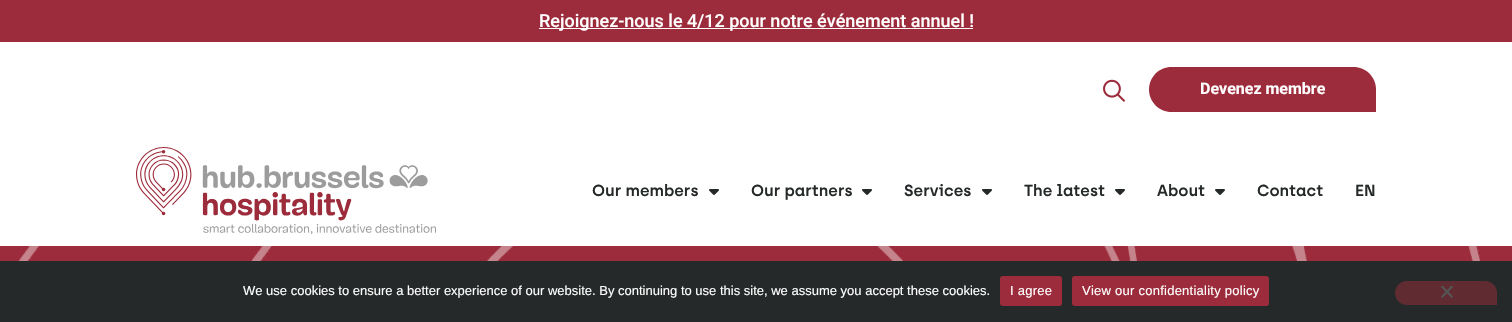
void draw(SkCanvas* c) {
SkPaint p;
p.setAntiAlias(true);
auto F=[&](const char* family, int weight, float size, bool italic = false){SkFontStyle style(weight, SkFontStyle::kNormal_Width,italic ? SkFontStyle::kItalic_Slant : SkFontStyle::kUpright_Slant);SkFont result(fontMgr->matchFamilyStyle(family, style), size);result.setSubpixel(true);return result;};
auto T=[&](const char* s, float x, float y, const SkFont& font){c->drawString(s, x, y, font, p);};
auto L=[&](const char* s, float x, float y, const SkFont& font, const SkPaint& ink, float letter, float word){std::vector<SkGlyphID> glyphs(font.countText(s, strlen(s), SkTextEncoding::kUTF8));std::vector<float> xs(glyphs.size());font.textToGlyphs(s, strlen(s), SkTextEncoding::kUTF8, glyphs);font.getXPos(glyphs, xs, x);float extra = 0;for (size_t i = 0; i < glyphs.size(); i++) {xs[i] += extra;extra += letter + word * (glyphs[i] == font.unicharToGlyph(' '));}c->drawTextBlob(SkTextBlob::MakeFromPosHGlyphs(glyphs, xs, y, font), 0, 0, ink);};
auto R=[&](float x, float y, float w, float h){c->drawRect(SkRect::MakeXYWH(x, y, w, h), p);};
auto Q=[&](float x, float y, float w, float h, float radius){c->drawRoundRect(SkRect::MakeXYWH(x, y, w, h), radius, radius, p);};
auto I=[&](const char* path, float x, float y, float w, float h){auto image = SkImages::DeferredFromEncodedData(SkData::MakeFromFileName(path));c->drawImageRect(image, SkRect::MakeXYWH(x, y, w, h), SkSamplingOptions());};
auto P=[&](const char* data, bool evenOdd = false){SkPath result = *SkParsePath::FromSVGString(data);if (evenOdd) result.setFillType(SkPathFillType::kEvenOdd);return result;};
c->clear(0xffffffff);
p.setColor(0xff9c2c3b);
R(0,0,1512,42);
p.setColor(0xffffffff);
R(539,28,434,1);
auto f1 = F("Roboto",500,18);
T("Rejoignez-nous le 4/12 pour notre événement annuel !",539,27,f1);
I("1.png",1103,79,22,23);
p.setColor(0xff9c2c3b);
c->drawPath(P("M1171.5 67h182c12.5 0 22.5 10 22.5 22.5v22.5h-204.5c-12.5 0-22.5-10-22.5-22.5c0-12.5 10-22.5 22.5-22.5z"),p);
auto f2 = F("Roboto",700,16);
p.setColor(0xffffffff);
T("Devenez membre",1200,94,f2);
I("2.png",136,147,300,87);
auto f3 = F("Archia",600,16);
p.setColor(0xff252929);
T("Our members",592,196,f3);
I("3.png",709,189,10,6);
T("Our partners",751,196,f3);
I("3.png",862,189,10,6);
T("Services",904,196,f3);
I("3.png",982,189,10,6);
T("The latest",1024,196,f3);
I("3.png",1115,189,10,6);
T("About",1157,196,f3);
I("3.png",1215,189,10,6);
T("Contact",1257,196,f3);
T("EN",1355,196,f3);
p.setColor(0xff9c2c3b);
R(0,246,1512,15);
I("4.png",18,246,1462,15);
p.setColor(0xff252929);
R(0,261,1512,61);
auto f4 = F("Liberation Sans",400,13);
p.setColor(0xffffffff);
T("We use cookies to ensure a better experience of our website. By continuing to use this site, we assume you accept these cookies.",243,295,f4);
p.setColor(0xff9c2c3b);
Q(1000,276,62,30,3);
p.setColor(0xffffffff);
L("I agree",1010,295,f4,p,.25,0);
p.setColor(0xff9c2c3b);
Q(1072,276,197,30,3);
p.setColor(0xffffffff);
L("View our confidentiality policy",1082,295,f4,p,.25,0);
p.setColor(0xff612b32);
c->drawPath(P("M1407 281h78c6.5 0 12 5.5 12 12v12h-90c-6.5 0-12-5.5-12-12c0-6.5 5.5-12 12-12z"),p);
p.setColor(0xff535555);
c->drawPath(P("M1451.5 285.5l1.5 1.5l-10.5 11l-1.5-1.5z"),p);
c->drawPath(P("M1441 287l1.5-1.5l10.5 11l-1.5 1.5z"),p);
}
